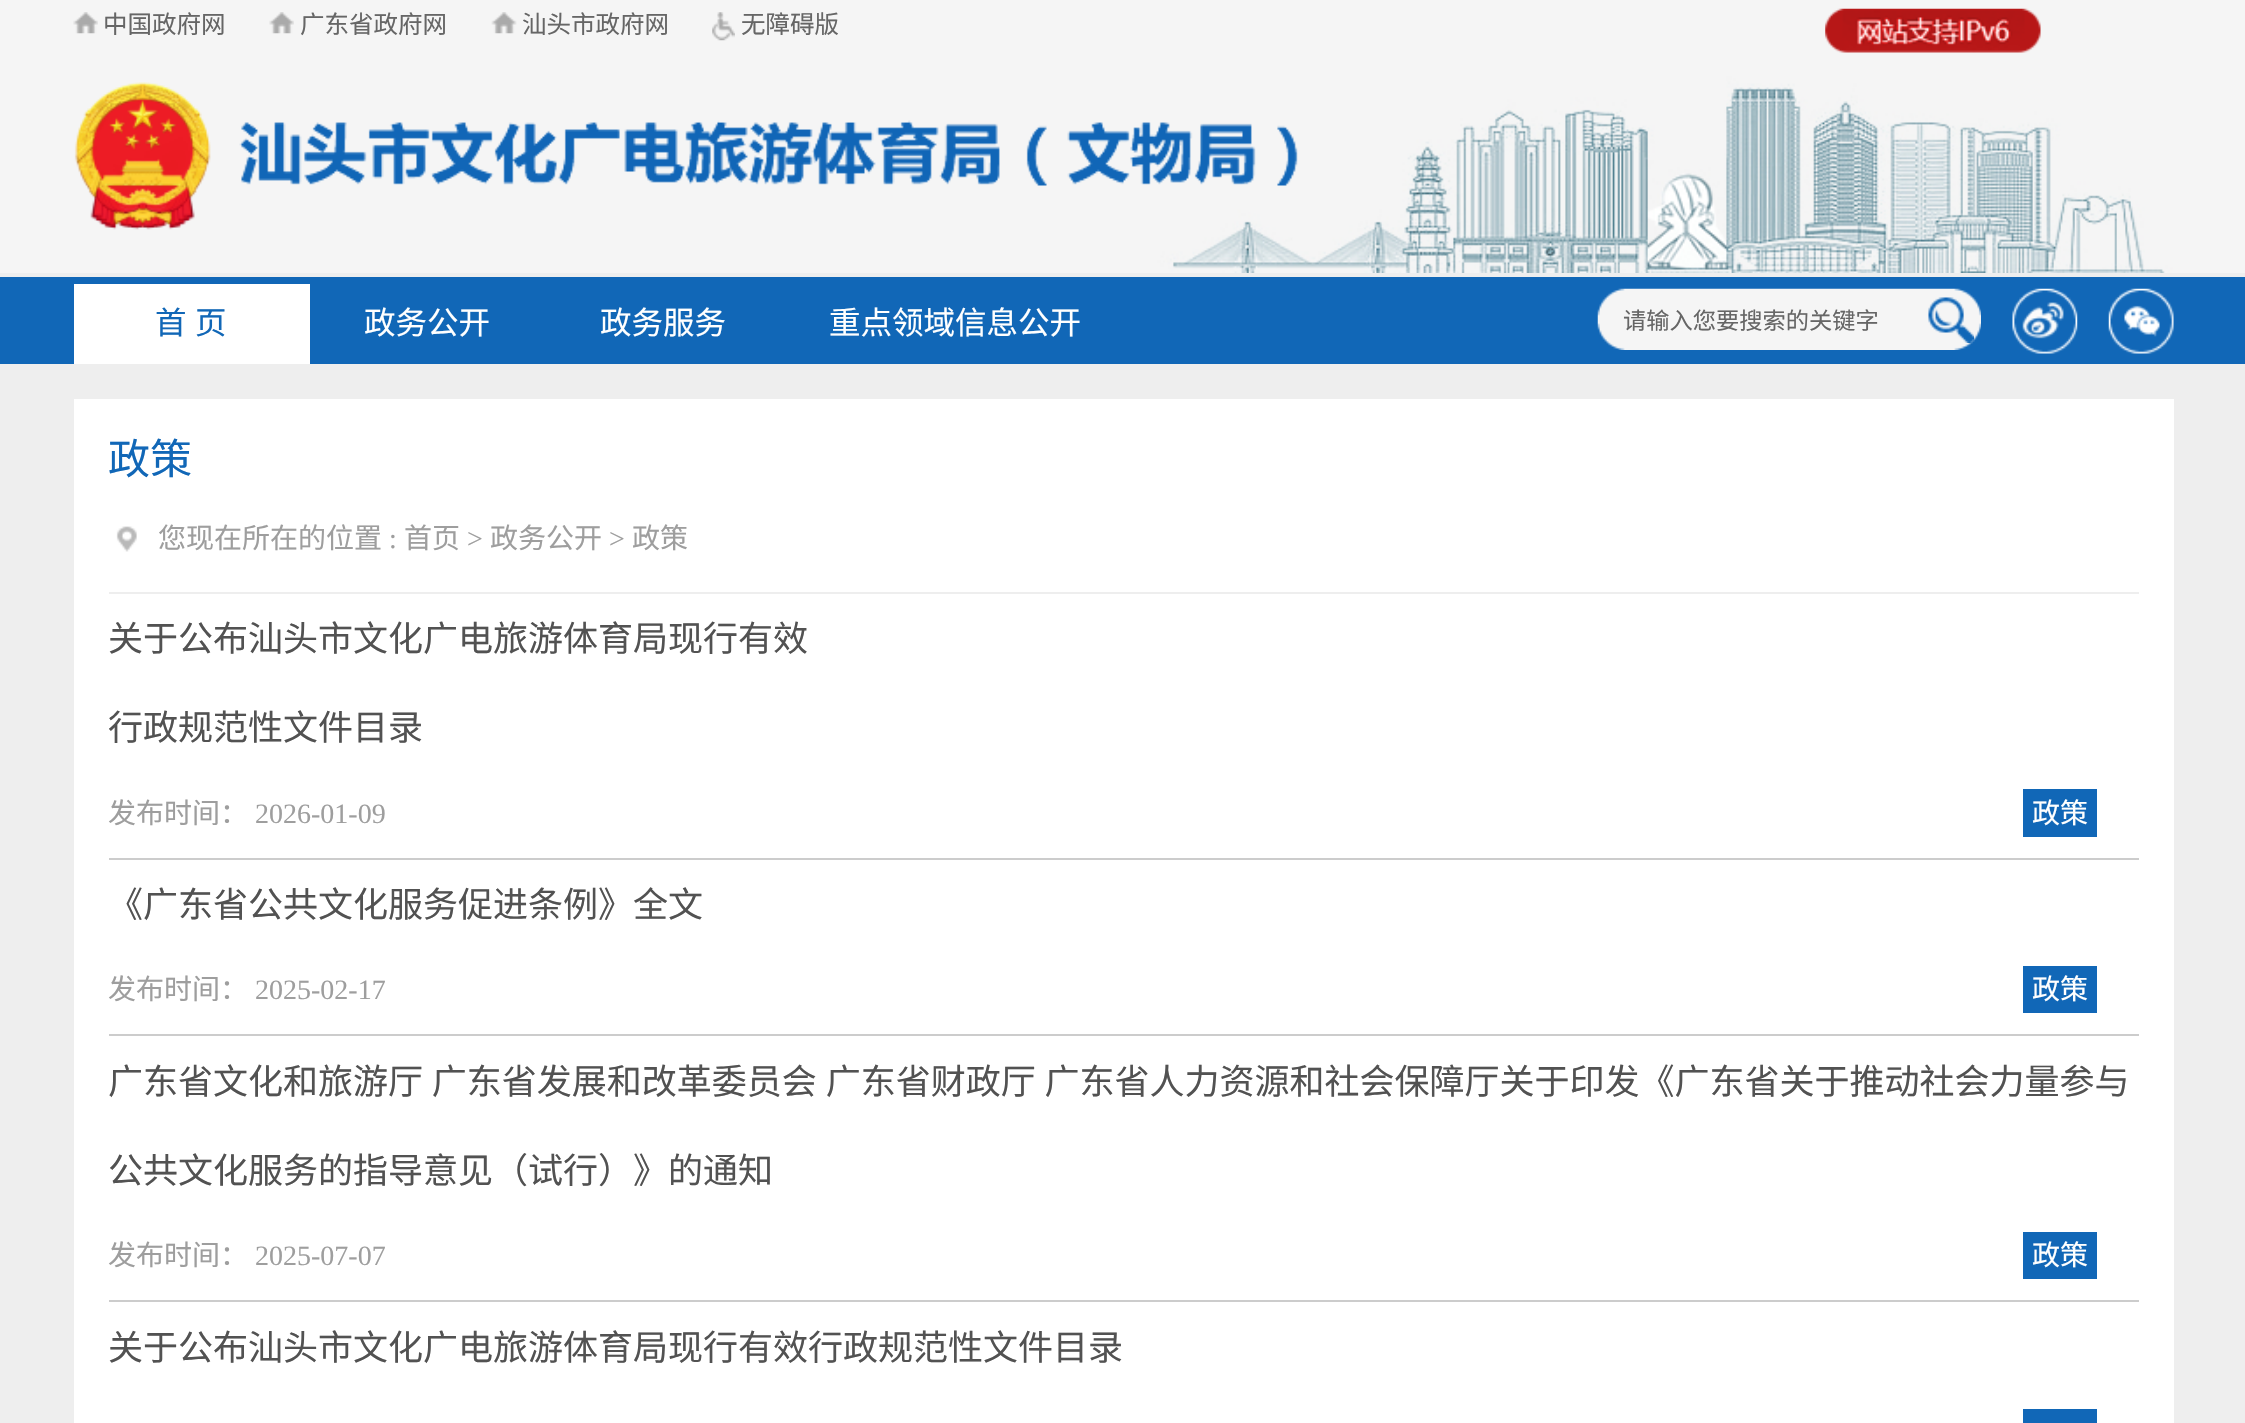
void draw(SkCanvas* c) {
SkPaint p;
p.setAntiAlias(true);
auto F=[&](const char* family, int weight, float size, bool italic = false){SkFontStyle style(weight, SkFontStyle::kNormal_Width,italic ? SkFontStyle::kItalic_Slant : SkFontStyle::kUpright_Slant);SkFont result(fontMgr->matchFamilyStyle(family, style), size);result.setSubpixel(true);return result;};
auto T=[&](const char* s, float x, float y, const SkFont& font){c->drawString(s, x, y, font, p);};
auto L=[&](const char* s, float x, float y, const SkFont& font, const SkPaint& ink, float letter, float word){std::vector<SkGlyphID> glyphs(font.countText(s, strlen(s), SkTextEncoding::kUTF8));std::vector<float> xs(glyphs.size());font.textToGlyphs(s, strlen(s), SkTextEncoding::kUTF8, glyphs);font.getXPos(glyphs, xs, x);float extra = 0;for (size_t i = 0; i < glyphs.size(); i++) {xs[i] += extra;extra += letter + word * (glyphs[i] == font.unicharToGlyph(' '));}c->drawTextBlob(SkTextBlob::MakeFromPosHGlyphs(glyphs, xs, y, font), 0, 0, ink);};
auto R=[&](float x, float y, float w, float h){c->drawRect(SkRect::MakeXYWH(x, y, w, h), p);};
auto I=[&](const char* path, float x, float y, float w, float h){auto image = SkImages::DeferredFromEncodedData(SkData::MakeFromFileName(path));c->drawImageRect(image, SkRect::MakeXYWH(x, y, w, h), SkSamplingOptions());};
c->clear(0xffeeeeee);
I("1.png",0,0,2245,273);
I("2.png",73,12,25,22);
auto f1 = F("Noto Sans CJK SC",400,24.5);
p.setColor(0xff666666);
T("中国政府网",103,33,f1);
I("3.png",269,12,25,22);
T("广东省政府网",300,33,f1);
I("4.png",491,12,26,22);
T("汕头市政府网",522,33,f1);
I("5.png",712,12,23,29);
T("无障碍版",741,33,f1);
I("6.png",74,82,1224,148);
p.setColor(0xff1167b7);
R(0,277,2245,87);
p.setColor(0xffffffff);
R(74,284,236,80);
auto f2 = F("Noto Sans CJK SC",400,31.5);
p.setColor(0xff1167b7);
T("首",155,334,f2);
T("页",195,334,f2);
p.setColor(0xffffffff);
T("政务公开",364,334,f2);
T("政务服务",600,334,f2);
T("重点领域信息公开",829,334,f2);
I("7.png",1597,288,384,62);
auto f3 = F("Noto Sans CJK SC",400,23.25);
p.setColor(0xff666666);
T("请输入您要搜索的关键字",1623,329,f3);
I("8.png",1928,297,46,46);
I("9.png",2012,288,66,66);
I("10.png",2108,288,66,66);
I("11.png",1825,8,216,45);
p.setColor(0xffffffff);
R(74,399,2100,1024);
auto f4 = F("Noto Sans CJK SC",400,42);
p.setColor(0xff1167b7);
T("政策",108,474,f4);
I("12.png",116,526,21,26);
auto f5 = F("Noto Sans CJK SC",400,28);
p.setColor(0xff9e9e9e);
T("您现在所在的位置",158,548,f5);
auto f6 = F("Liberation Serif",400,28);
T(":",389,548,f6);
T("首页",404,548,f5);
T(">",467,548,f6);
T("政务公开",490,548,f5);
T(">",609,548,f6);
T("政策",632,548,f5);
p.setColor(0xffeeeeee);
R(109,592,2030,2);
p.setColor(0xffcccccc);
R(109,858,2030,2);
auto f7 = F("Noto Sans CJK SC",400,35);
p.setColor(0xff525252);
T("关于公布汕头市文化广电旅游体育局现行有效",108,651,f7);
T("行政规范性文件目录",108,740,f7);
p.setColor(0xff9e9e9e);
T("发布时间：",108,823,f5);
T("2026-01-09",255,823,f6);
p.setColor(0xff1167b7);
R(2023,789,74,48);
p.setColor(0xffffffff);
T("政策",2032,823,f5);
p.setColor(0xffcccccc);
R(109,1034,2030,2);
p.setColor(0xff525252);
T("《广东省公共文化服务促进条例》全文",108,917,f7);
p.setColor(0xff9e9e9e);
T("发布时间：",108,999,f5);
T("2025-02-17",255,999,f6);
p.setColor(0xff1167b7);
R(2023,966,74,47);
p.setColor(0xffffffff);
T("政策",2032,999,f5);
p.setColor(0xffcccccc);
R(109,1300,2030,2);
p.setColor(0xff525252);
L("广东省文化和旅游厅 广东省发展和改革委员会 广东省财政厅 广东省人力资源和社会保障厅关于印发《广东省关于推动社会力量参与",108,1094,f7,p,0,1);
T("公共文化服务的指导意见（试行）》的通知",108,1183,f7);
p.setColor(0xff9e9e9e);
T("发布时间：",108,1265,f5);
T("2025-07-07",255,1265,f6);
p.setColor(0xff1167b7);
R(2023,1232,74,47);
p.setColor(0xffffffff);
T("政策",2032,1265,f5);
p.setColor(0xff525252);
T("关于公布汕头市文化广电旅游体育局现行有效行政规范性文件目录",108,1360,f7);
p.setColor(0xff1167b7);
R(2023,1409,74,14);
}
